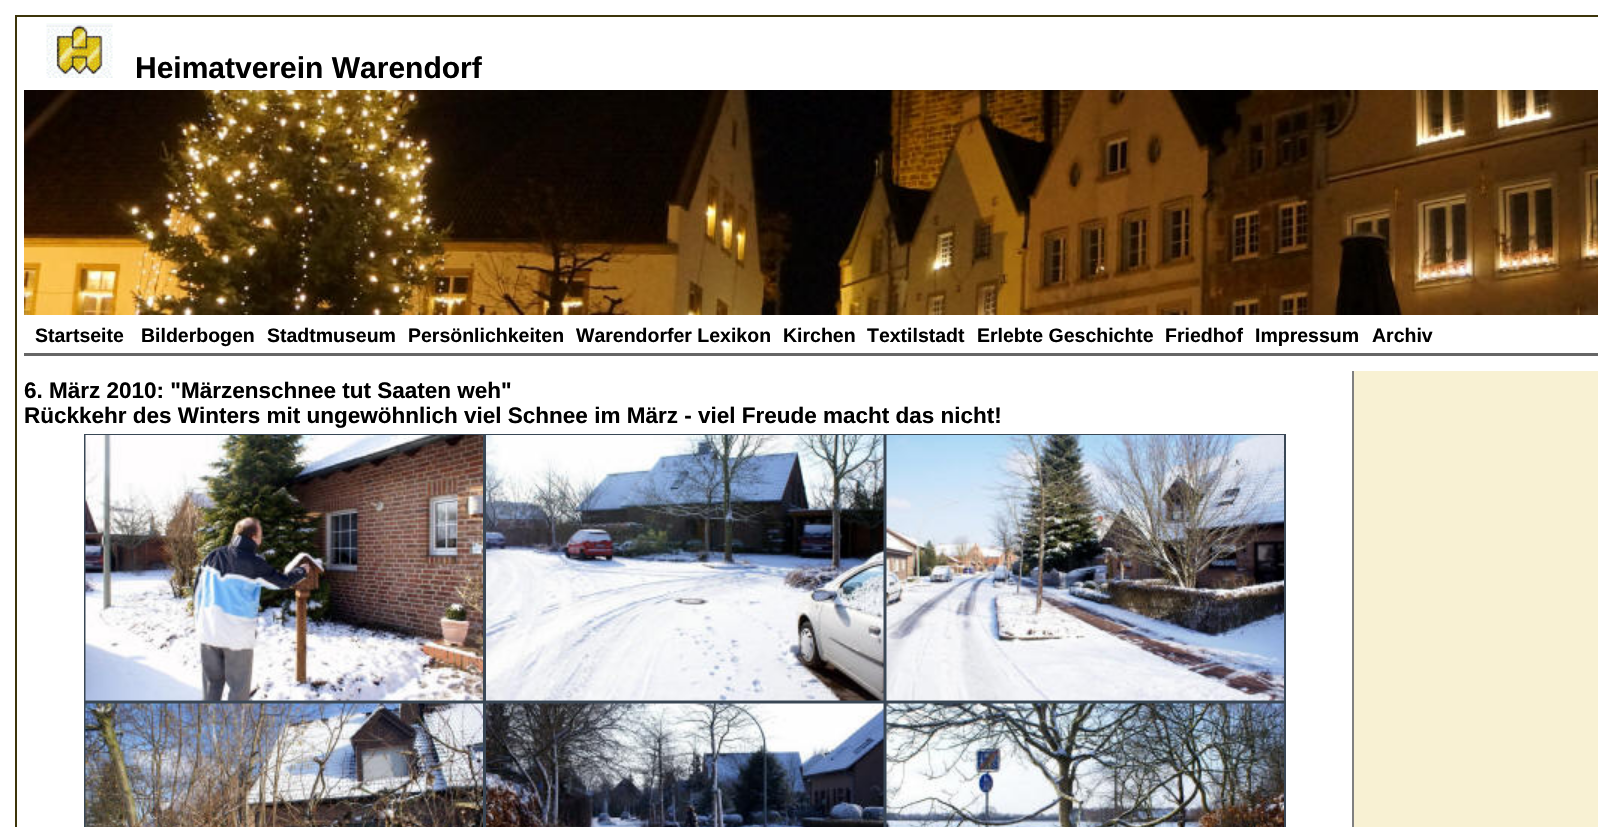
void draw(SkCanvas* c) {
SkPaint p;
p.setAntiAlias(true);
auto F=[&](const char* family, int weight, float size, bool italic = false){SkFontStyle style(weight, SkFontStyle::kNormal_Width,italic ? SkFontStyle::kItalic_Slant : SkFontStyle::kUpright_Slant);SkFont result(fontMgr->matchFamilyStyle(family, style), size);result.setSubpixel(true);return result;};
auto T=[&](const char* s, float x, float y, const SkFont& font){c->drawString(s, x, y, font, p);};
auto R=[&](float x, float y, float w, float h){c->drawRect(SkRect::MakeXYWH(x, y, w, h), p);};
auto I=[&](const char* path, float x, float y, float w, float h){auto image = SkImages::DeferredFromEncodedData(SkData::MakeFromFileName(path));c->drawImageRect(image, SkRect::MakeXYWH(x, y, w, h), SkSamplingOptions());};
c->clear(0xffffffff);
p.setColor(0xfff8f1d3);
R(1354,371,244,456);
p.setStroke(true);
p.setStrokeWidth(2);
p.setColor(0xff3d350a);
c->drawRect(SkRect::MakeXYWH(16,16,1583,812),p);
I("1.png",46,23,67,55);
auto f1 = F("Liberation Sans",700,30);
p.setStroke(false);
p.setColor(0xff000000);
T("Heimatverein Warendorf",135,78,f1);
I("2.png",24,90,1574,225);
p.setColor(0xff666666);
R(24,353,1574,3);
auto f2 = F("Liberation Sans",700,19.5);
p.setColor(0xff000000);
T("Startseite",35,342,f2);
T("Bilderbogen",141,342,f2);
T("Stadtmuseum",267,342,f2);
T("Persönlichkeiten",408,342,f2);
T("Warendorfer Lexikon",576,342,f2);
T("Kirchen",783,342,f2);
T("Textilstadt",867,342,f2);
T("Erlebte Geschichte",977,342,f2);
T("Friedhof",1165,342,f2);
T("Impressum",1255,342,f2);
T("Archiv",1372,342,f2);
p.setColor(0xff808080);
R(1352,371,2,456);
auto f3 = F("Liberation Sans",700,22.5);
p.setColor(0xff000000);
T("6. März 2010: \"Märzenschnee tut Saaten weh\"",24,398,f3);
T("Rückkehr des Winters mit ungewöhnlich viel Schnee im März - viel Freude macht das nicht!",24,423,f3);
p.setStroke(true);
p.setColor(0xff394755);
c->drawRect(SkRect::MakeXYWH(85,435,399,266),p);
c->drawRect(SkRect::MakeXYWH(486,435,398,266),p);
c->drawRect(SkRect::MakeXYWH(886,435,399,266),p);
I("3.png",85,435,398,266);
I("4.png",486,435,398,266);
I("5.png",886,435,398,266);
c->drawRect(SkRect::MakeXYWH(85,703,399,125),p);
c->drawRect(SkRect::MakeXYWH(486,703,398,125),p);
c->drawRect(SkRect::MakeXYWH(886,703,399,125),p);
I("6.png",85,703,398,124);
I("7.png",486,703,398,124);
I("8.png",886,703,398,124);
}
